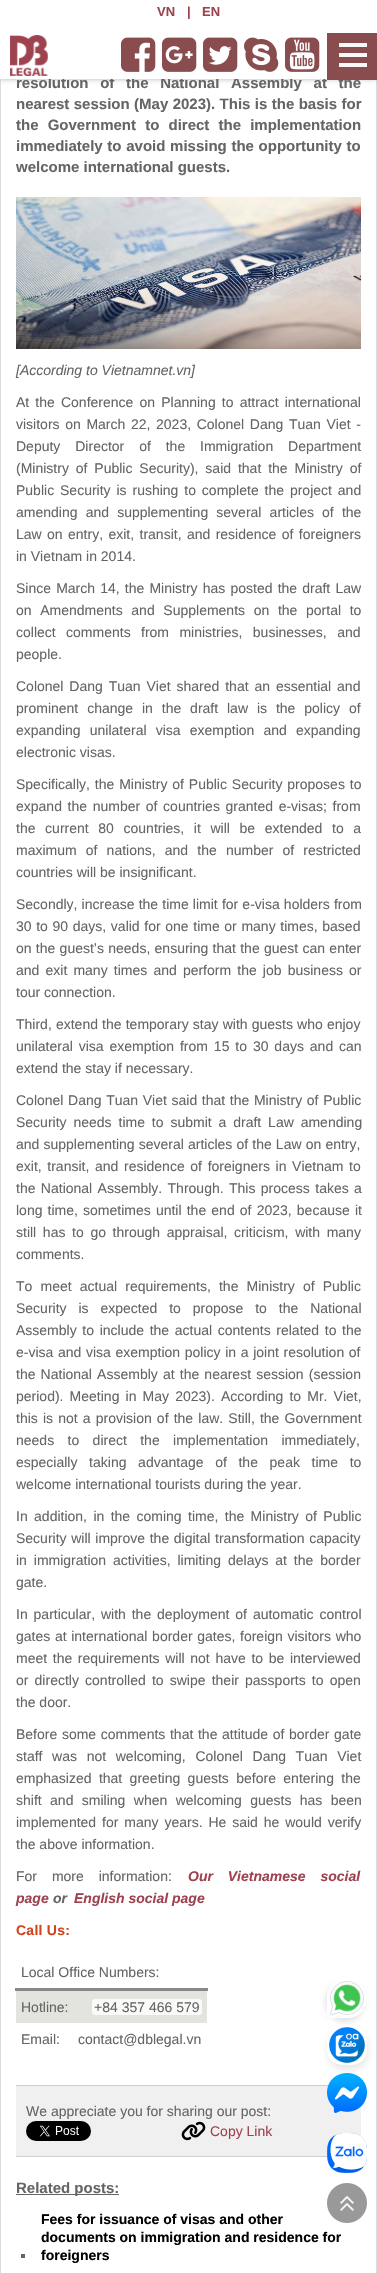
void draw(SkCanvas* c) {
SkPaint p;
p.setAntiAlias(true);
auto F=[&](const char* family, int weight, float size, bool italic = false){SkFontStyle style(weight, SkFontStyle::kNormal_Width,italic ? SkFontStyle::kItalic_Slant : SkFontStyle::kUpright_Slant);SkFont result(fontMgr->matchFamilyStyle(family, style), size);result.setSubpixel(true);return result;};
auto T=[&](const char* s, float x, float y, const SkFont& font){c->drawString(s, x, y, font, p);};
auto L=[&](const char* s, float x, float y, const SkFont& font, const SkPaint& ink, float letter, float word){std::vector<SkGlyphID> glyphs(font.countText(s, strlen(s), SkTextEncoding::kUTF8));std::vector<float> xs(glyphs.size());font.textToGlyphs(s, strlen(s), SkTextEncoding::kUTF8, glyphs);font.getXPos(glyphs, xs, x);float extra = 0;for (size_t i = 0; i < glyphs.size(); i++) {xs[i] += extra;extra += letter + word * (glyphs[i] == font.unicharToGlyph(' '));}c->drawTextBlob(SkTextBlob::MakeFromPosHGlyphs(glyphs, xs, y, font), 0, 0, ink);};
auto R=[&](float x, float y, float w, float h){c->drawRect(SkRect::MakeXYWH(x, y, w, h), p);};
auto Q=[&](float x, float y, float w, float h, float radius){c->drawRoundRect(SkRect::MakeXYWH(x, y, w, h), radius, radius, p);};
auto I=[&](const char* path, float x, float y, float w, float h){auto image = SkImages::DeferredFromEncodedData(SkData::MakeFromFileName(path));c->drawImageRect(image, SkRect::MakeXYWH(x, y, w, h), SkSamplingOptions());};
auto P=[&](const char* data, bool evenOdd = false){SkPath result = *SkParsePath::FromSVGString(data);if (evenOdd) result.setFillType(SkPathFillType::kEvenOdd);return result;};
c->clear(0xffffffff);
p.setColor(0xffdcdcdc);
R(376,80,1,2193);
R(0,79,1,2194);
p.setColor(0x4d000000);
p.setMaskFilter(SkMaskFilter::MakeBlur(kNormal_SkBlurStyle, 2.5));
c->drawRect(SkRect::MakeXYWH(0,0,377,79),p);
p.setMaskFilter(nullptr);
auto f1 = F("Liberation Sans",700,15);
p.setColor(0xff656565);
L("resolution of the National Assembly at the",16,88,f1,p,0,7.5);
p.setColor(0xffffffff);
R(0,0,377,79);
auto f2 = F("Liberation Sans",700,13);
p.setColor(0xff9e424f);
T("VN",157,16,f2);
T("|",187,16,f2);
T("EN",202,16,f2);
I("1.png",10,35,38,41);
I("2.png",121,37,35,35);
I("3.png",162,37,35,35);
I("4.png",203,37,35,35);
I("5.png",244,37,35,35);
I("6.png",285,37,35,35);
p.setColor(0xff8a4d4f);
R(327,33,50,47);
p.setColor(0xfff8f8f8);
R(339,43,28,4);
R(339,53,28,4);
R(339,63,28,4);
p.setColor(0xff656565);
L("nearest session (May 2023). This is the basis for",16,109,f1,p,0,.25);
L("the Government to direct the implementation",16,130,f1,p,0,5);
L("immediately to avoid missing the opportunity to",16,151,f1,p,0,.5);
T("welcome international guests.",16,172,f1);
I("7.png",16,197,345,152);
auto f3 = F("Liberation Sans",400,14,true);
T("[According to Vietnamnet.vn]",16,375,f3);
auto f4 = F("Liberation Sans",400,14);
L("At the Conference on Planning to attract international",16,407,f4,p,0,2.25);
L("visitors on March 22, 2023, Colonel Dang Tuan Viet -",16,429,f4,p,0,1.75);
L("Deputy Director of the Immigration Department",16,451,f4,p,0,11);
L("(Ministry of Public Security), said that the Ministry of",16,473,f4,p,0,3);
L("Public Security is rushing to complete the project and",16,495,f4,p,0,2);
L("amending and supplementing several articles of the",16,517,f4,p,0,4.25);
L("Law on entry, exit, transit, and residence of foreigners",16,539,f4,p,0,1.5);
T("in Vietnam in 2014.",16,561,f4);
L("Since March 14, the Ministry has posted the draft Law",16,593,f4,p,0,1.25);
L("on Amendments and Supplements on the portal to",16,615,f4,p,0,4.75);
L("collect comments from ministries, businesses, and",16,637,f4,p,0,6.5);
T("people.",16,659,f4);
L("Colonel Dang Tuan Viet shared that an essential and",16,691,f4,p,0,2);
L("prominent change in the draft law is the policy of",16,713,f4,p,0,5);
L("expanding unilateral visa exemption and expanding",16,735,f4,p,0,5.25);
T("electronic visas.",16,757,f4);
L("Specifically, the Ministry of Public Security proposes to",16,789,f4,p,0,1);
L("expand the number of countries granted e-visas; from",16,811,f4,p,0,1.75);
L("the current 80 countries, it will be extended to a",16,833,f4,p,0,5.75);
L("maximum of nations, and the number of restricted",16,855,f4,p,0,5.25);
T("countries will be insignificant.",16,877,f4);
L("Secondly, increase the time limit for e-visa holders from",16,909,f4,p,0,.25);
L("30 to 90 days, valid for one time or many times, based",16,931,f4,p,0,.75);
L("on the guest’s needs, ensuring that the guest can enter",16,953,f4,p,0,.4);
L("and exit many times and perform the job business or",16,975,f4,p,0,2.25);
T("tour connection.",16,997,f4);
L("Third, extend the temporary stay with guests who enjoy",16,1029,f4,p,0,.25);
L("unilateral visa exemption from 15 to 30 days and can",16,1051,f4,p,0,2);
T("extend the stay if necessary.",16,1073,f4);
L("Colonel Dang Tuan Viet said that the Ministry of Public",16,1105,f4,p,0,.75);
L("Security needs time to submit a draft Law amending",16,1127,f4,p,0,3);
L("and supplementing several articles of the Law on entry,",16,1149,f4,p,0,.25);
L("exit, transit, and residence of foreigners in Vietnam to",16,1171,f4,p,0,1.75);
L("the National Assembly. Through. This process takes a",16,1193,f4,p,0,1.5);
L("long time, sometimes until the end of 2023, because it",16,1215,f4,p,0,1.25);
L("still has to go through appraisal, criticism, with many",16,1237,f4,p,0,2.75);
T("comments.",16,1259,f4);
L("To meet actual requirements, the Ministry of Public",16,1291,f4,p,0,4.25);
L("Security is expected to propose to the National",16,1313,f4,p,0,8);
L("Assembly to include the actual contents related to the",16,1335,f4,p,0,1.75);
L("e-visa and visa exemption policy in a joint resolution of",16,1357,f4,p,0,.75);
L("the National Assembly at the nearest session (session",16,1379,f4,p,0,1.25);
L("period). Meeting in May 2023). According to Mr. Viet,",16,1401,f4,p,0,2.25);
L("this is not a provision of the law. Still, the Government",16,1423,f4,p,0,1.25);
L("needs to direct the implementation immediately,",16,1445,f4,p,0,9.5);
L("especially taking advantage of the peak time to",16,1467,f4,p,0,7.75);
T("welcome international tourists during the year.",16,1489,f4);
L("In addition, in the coming time, the Ministry of Public",16,1521,f4,p,0,2.5);
L("Security will improve the digital transformation capacity",16,1543,f4,p,0,.75);
L("in immigration activities, limiting delays at the border",16,1565,f4,p,0,3);
T("gate.",16,1587,f4);
L("In particular, with the deployment of automatic control",16,1619,f4,p,0,2);
L("gates at international border gates, foreign visitors who",16,1641,f4,p,0,.75);
L("meet the requirements will not have to be interviewed",16,1663,f4,p,0,1.75);
L("or directly controlled to swipe their passports to open",16,1685,f4,p,0,2.25);
T("the door.",16,1707,f4);
L("Before some comments that the attitude of border gate",16,1739,f4,p,0,.75);
L("staff was not welcoming, Colonel Dang Tuan Viet",16,1761,f4,p,0,5.75);
L("emphasized that greeting guests before entering the",16,1783,f4,p,0,3.5);
L("shift and smiling when welcoming guests has been",16,1805,f4,p,0,4.5);
L("implemented for many years. He said he would verify",16,1827,f4,p,0,2);
T("the above information.",16,1849,f4);
L("For more information:",16,1881,f4,p,0,11);
auto f5 = F("Liberation Sans",700,14,true);
p.setColor(0xff9e424f);
L("Our Vietnamese social",188,1881,f5,p,0,11);
T("page",16,1903,f5);
p.setColor(0xff656565);
T("or",53,1903,f5);
p.setColor(0xff9e424f);
T("English social page",74,1903,f5);
auto f6 = F("Liberation Sans",700,14);
p.setColor(0xffd2431b);
L("Call Us:",16,1935,f6,p,.25,0);
p.setColor(0xff898989);
R(15,1988,193,3);
p.setColor(0xff656565);
T("Local Office Numbers:",21,1977,f4);
p.setColor(0xffe4e4df);
R(16,1991,191,32);
p.setColor(0xff656565);
T("Hotline:",21,2012,f4);
p.setColor(0xfffafaf9);
Q(92,1999,110,16,3);
p.setColor(0xff656565);
T("+84 357 466 579",94,2012,f4);
T("Email:",21,2044,f4);
T("contact@dblegal.vn",78,2044,f4);
p.setColor(0xfff0f0f0);
R(16,2086,345,70);
p.setColor(0xffcecece);
R(16,2085,313,1);
R(16,2156,312,1);
p.setColor(0xff656565);
T("We appreciate you for sharing our post:",26,2116,f4);
I("8.png",26,2121,65,20);
I("9.png",181,2121,25,20);
p.setColor(0xff9e424f);
T("Copy Link",210,2136,f4);
p.setColor(0xff656565);
R(16,2194,103,1);
T("Related posts:",16,2193,f1);
R(21,2254,4,4);
p.setColor(0xff000000);
T("Fees for issuance of visas and other",41,2224,f6);
T("documents on immigration and residence for",41,2242,f6);
T("foreigners",41,2260,f6);
p.setColor(0x338d8e8f);
p.setMaskFilter(SkMaskFilter::MakeBlur(kNormal_SkBlurStyle, 3.5));
c->drawRoundRect(SkRect::MakeXYWH(328,2030,40,40),15,15,p);
p.setMaskFilter(nullptr);
p.setColor(0xffffffff);
Q(327,2025,40,40,15);
I("11.png",329,2027,36,36);
c->save();
c->clipPath(P("M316 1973h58v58h-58zm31 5c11 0 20 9 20 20c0 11-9 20-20 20h-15c-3 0-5-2-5-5v-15c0-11 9-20 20-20z",true),true);
p.setColor(0x1a000000);
p.setMaskFilter(SkMaskFilter::MakeBlur(kNormal_SkBlurStyle, 2.5));
c->drawRoundRect(SkRect::MakeXYWH(325,1982,40,40),20,20,p);
p.setMaskFilter(nullptr);
c->restore();
I("10.png",330,1981,34,37);
I("12.png",327,2073,40,40);
I("13.png",327,2133,40,40);
I("14.png",327,2183,40,40);
}
